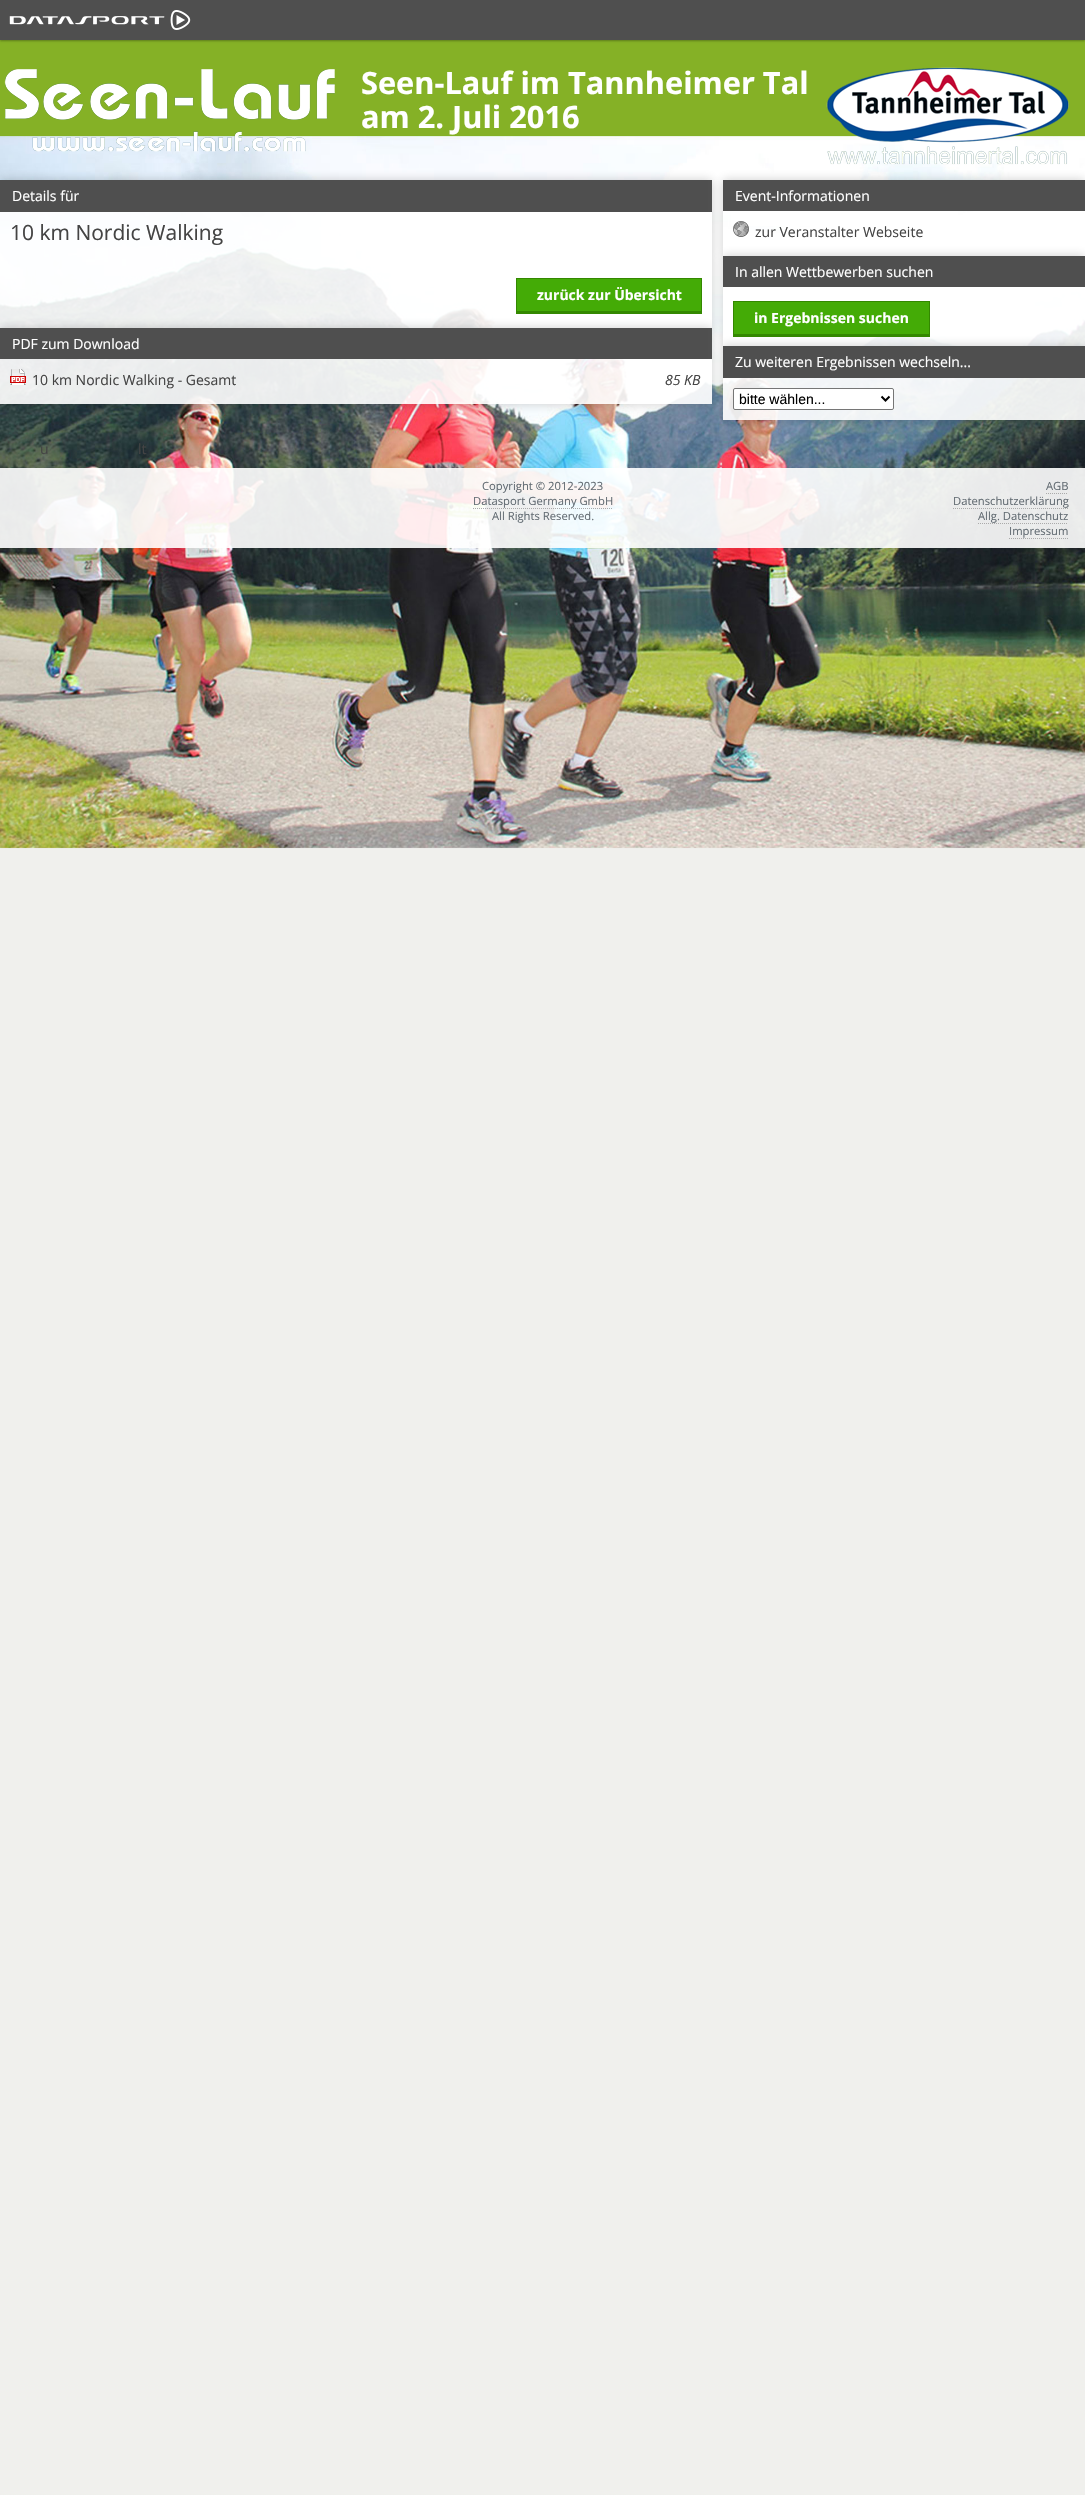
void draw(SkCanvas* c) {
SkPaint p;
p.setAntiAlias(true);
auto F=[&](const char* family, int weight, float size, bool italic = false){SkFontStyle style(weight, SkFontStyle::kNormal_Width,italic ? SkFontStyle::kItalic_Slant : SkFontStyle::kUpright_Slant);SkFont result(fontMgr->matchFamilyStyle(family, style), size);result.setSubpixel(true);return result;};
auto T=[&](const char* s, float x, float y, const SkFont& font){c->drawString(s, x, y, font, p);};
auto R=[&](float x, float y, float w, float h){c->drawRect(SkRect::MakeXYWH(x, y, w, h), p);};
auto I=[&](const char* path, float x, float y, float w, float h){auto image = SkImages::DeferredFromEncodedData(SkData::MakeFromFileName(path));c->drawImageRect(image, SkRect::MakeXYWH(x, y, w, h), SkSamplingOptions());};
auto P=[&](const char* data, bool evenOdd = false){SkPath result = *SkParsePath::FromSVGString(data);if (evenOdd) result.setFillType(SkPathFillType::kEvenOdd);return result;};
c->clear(0xfff0f0ed);
I("1.png",0,40,1085,809);
p.setColor(0x4d000000);
p.setMaskFilter(SkMaskFilter::MakeBlur(kNormal_SkBlurStyle, 1));
c->drawRect(SkRect::MakeXYWH(0,1,1085,40),p);
p.setMaskFilter(nullptr);
p.setColor(0xff4f4f4f);
R(0,0,1085,40);
I("2.png",9,10,182,20);
I("3.png",4,69,331,83);
auto f1 = F("Open Sans",700,30.75);
p.setColor(0xffffffff);
T("Seen-Lauf im Tannheimer Tal",361,94,f1);
T("am 2. Juli 2016",361,128,f1);
I("4.png",826,67,243,98);
c->save();
c->clipPath(P("M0 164h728v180h-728zm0 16h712v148h-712z",true),true);
p.setColor(0x330a0a0a);
p.setMaskFilter(SkMaskFilter::MakeBlur(kNormal_SkBlurStyle, 5));
c->drawRect(SkRect::MakeXYWH(0,180,712,148),p);
p.setMaskFilter(nullptr);
c->restore();
p.setColor(0xe6ffffff);
R(0,212,712,116);
p.setColor(0xff4f4f4f);
R(0,180,712,32);
auto f2 = F("Open Sans",400,14);
p.setColor(0xffffffff);
T("Details für",12,201,f2);
auto f3 = F("Open Sans",400,21);
p.setColor(0xff444444);
T("10 km Nordic Walking",10,240,f3);
p.setColor(0xff338800);
R(516,312,186,2);
p.setColor(0xff44ab06);
c->drawRect(SkRect::MakeXYWH(516.5,278.5,185,33),p);
p.setStroke(true);
p.setStrokeWidth(1);
p.setColor(0xff338800);
c->drawRect(SkRect::MakeXYWH(516.5,278.5,185,33),p);
auto f4 = F("Open Sans",700,14);
p.setStroke(false);
p.setColor(0xffffffff);
T("zurück zur Übersicht",537,300,f4);
c->save();
c->clipPath(P("M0 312h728v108h-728zm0 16h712v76h-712z",true),true);
p.setColor(0x330a0a0a);
p.setMaskFilter(SkMaskFilter::MakeBlur(kNormal_SkBlurStyle, 5));
c->drawRect(SkRect::MakeXYWH(0,328,712,76),p);
p.setMaskFilter(nullptr);
c->restore();
p.setColor(0xe6ffffff);
R(0,359,712,45);
p.setColor(0xff4f4f4f);
R(0,328,712,31);
p.setColor(0xffffffff);
T("PDF zum Download",12,349,f2);
I("5.png",10,369,16,16);
p.setColor(0xff444444);
T("10 km Nordic Walking - Gesamt",32,385,f2);
auto f5 = F("Open Sans",400,14,true);
T("85 KB",665,385,f5);
c->save();
c->clipPath(P("M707 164h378v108h-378zm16 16h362v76h-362z",true),true);
p.setColor(0x330a0a0a);
p.setMaskFilter(SkMaskFilter::MakeBlur(kNormal_SkBlurStyle, 5));
c->drawRect(SkRect::MakeXYWH(723,180,362,76),p);
p.setMaskFilter(nullptr);
c->restore();
p.setColor(0xe6ffffff);
R(731,211,227,15);
p.setColor(0xff4f4f4f);
R(723,180,362,31);
p.setColor(0xffffffff);
T("Event-Informationen",735,201,f2);
I("6.png",733,221,16,16);
p.setColor(0xff444444);
T("zur Veranstalter Webseite",755,237,f2);
c->save();
c->clipPath(P("M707 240h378v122h-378zm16 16h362v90h-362z",true),true);
p.setColor(0x330a0a0a);
p.setMaskFilter(SkMaskFilter::MakeBlur(kNormal_SkBlurStyle, 5));
c->drawRect(SkRect::MakeXYWH(723,256,362,90),p);
p.setMaskFilter(nullptr);
c->restore();
p.setColor(0xe6ffffff);
R(723,287,362,59);
p.setColor(0xff4f4f4f);
R(723,256,362,31);
p.setColor(0xffffffff);
T("In allen Wettbewerben suchen",735,277,f2);
p.setColor(0xff338800);
R(733,335,197,2);
p.setColor(0xff44ab06);
c->drawRect(SkRect::MakeXYWH(733.5,301.5,196,33),p);
p.setStroke(true);
p.setColor(0xff338800);
c->drawRect(SkRect::MakeXYWH(733.5,301.5,196,33),p);
p.setStroke(false);
p.setColor(0xffffffff);
T("in Ergebnissen suchen",754,323,f4);
c->save();
c->clipPath(P("M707 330h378v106h-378zm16 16h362v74h-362z",true),true);
p.setColor(0x330a0a0a);
p.setMaskFilter(SkMaskFilter::MakeBlur(kNormal_SkBlurStyle, 5));
c->drawRect(SkRect::MakeXYWH(723,346,362,74),p);
p.setMaskFilter(nullptr);
c->restore();
p.setColor(0xe6ffffff);
R(723,378,362,42);
p.setColor(0xff4f4f4f);
R(723,346,362,32);
p.setColor(0xffffffff);
T("Zu weiteren Ergebnissen wechseln...",735,367,f2);
c->drawRoundRect(SkRect::MakeXYWH(733.5,388.5,160,21),1.5,1.5,p);
p.setStroke(true);
p.setColor(0xff767676);
c->drawRoundRect(SkRect::MakeXYWH(733.5,388.5,160,21),1.5,1.5,p);
p.setStrokeWidth(2);
p.setColor(0xff000000);
c->drawPath(P("M881.5 396.5l4 4l4-4"),p);
auto f6 = F("Liberation Sans",400,14);
p.setStroke(false);
T("bitte wählen...",739,404,f6);
p.setColor(0xff444444);
T("u",40,454,f2);
T("lt",138,454,f2);
p.setColor(0xe6ffffff);
R(0,468,1085,80);
auto f7 = F("Open Sans",400,11.25);
p.setColor(0xff636c73);
T("Copyright © 2012-2023",482,490,f7);
T("Datasport Germany GmbH",473,505,f7);
p.setStroke(true);
p.setStrokeWidth(1);
p.setColor(0xffaaaaaa);
p.setPathEffect(SkDashPathEffect::Make({{1,1}}, 0));
c->drawPath(P("M473 508.5h139"),p);
p.setPathEffect(nullptr);
p.setStroke(false);
p.setColor(0xff636c73);
T("All Rights Reserved.",492,520,f7);
T("AGB",1046,490,f7);
p.setStroke(true);
p.setColor(0xffaaaaaa);
p.setPathEffect(SkDashPathEffect::Make({{1,1}}, 0));
c->drawPath(P("M1046 493.5h22"),p);
p.setPathEffect(nullptr);
p.setStroke(false);
p.setColor(0xff636c73);
T("Datenschutzerklärung",953,505,f7);
p.setStroke(true);
p.setColor(0xffaaaaaa);
p.setPathEffect(SkDashPathEffect::Make({{1,1}}, 0));
c->drawPath(P("M953 508.5h115"),p);
p.setPathEffect(nullptr);
p.setStroke(false);
p.setColor(0xff636c73);
T("Allg. Datenschutz",978,520,f7);
p.setStroke(true);
p.setColor(0xffaaaaaa);
p.setPathEffect(SkDashPathEffect::Make({{1,1}}, 0));
c->drawPath(P("M978 523.5h90"),p);
p.setPathEffect(nullptr);
p.setStroke(false);
p.setColor(0xff636c73);
T("Impressum",1009,535,f7);
p.setStroke(true);
p.setColor(0xffaaaaaa);
p.setPathEffect(SkDashPathEffect::Make({{1,1}}, 0));
c->drawPath(P("M1009 538.5h59"),p);
p.setPathEffect(nullptr);
}
